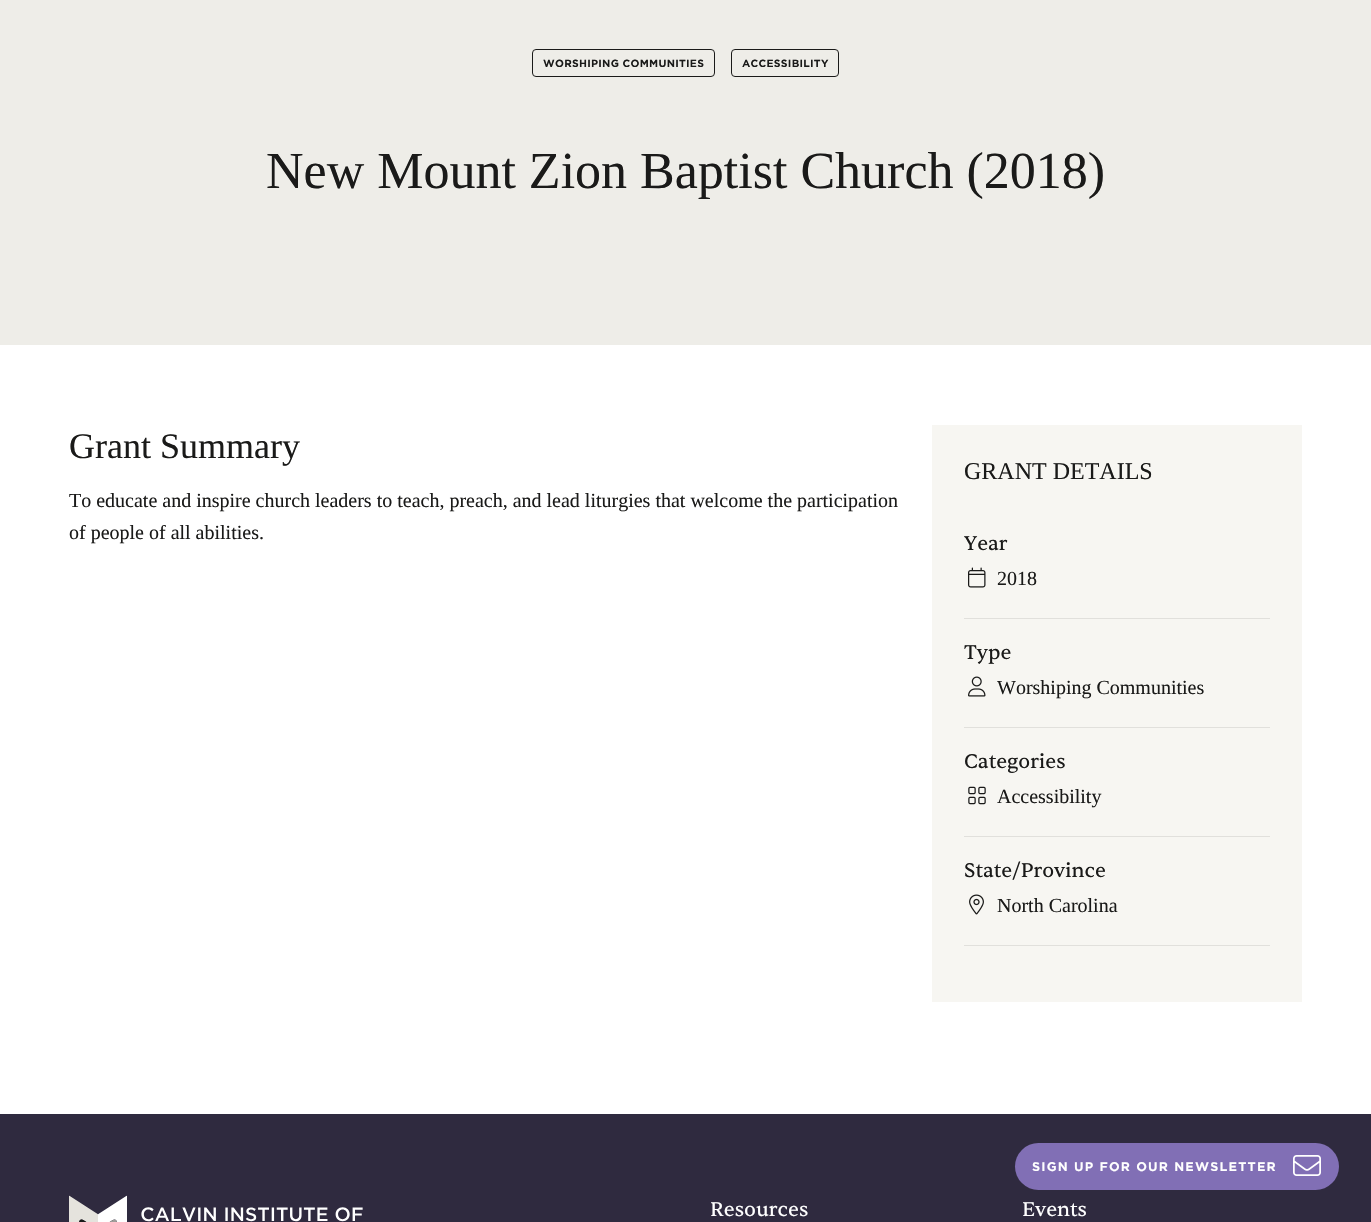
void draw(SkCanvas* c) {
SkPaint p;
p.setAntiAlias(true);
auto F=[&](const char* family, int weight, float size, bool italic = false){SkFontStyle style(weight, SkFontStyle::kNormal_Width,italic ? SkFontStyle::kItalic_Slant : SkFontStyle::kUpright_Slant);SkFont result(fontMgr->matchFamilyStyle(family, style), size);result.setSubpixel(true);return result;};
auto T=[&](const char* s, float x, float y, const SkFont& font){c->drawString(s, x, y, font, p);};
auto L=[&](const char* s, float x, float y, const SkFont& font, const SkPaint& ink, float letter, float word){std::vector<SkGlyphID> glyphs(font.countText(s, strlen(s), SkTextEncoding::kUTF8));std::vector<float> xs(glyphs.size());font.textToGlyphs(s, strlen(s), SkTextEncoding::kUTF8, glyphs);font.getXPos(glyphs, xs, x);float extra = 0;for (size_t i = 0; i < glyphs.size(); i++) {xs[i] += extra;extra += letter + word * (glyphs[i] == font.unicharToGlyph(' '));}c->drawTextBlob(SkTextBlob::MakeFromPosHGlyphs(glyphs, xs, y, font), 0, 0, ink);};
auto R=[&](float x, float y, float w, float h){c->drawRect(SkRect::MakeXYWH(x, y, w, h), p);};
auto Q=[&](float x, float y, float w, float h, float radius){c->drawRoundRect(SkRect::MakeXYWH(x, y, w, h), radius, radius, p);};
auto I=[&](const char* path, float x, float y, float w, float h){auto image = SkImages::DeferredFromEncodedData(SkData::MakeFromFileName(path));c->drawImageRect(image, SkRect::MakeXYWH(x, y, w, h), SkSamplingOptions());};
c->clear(0xffffffff);
p.setColor(0xffeeede8);
R(0,0,1371,345);
p.setStroke(true);
p.setStrokeWidth(1);
p.setColor(0xff1a1a19);
c->drawRoundRect(SkRect::MakeXYWH(532.5,49.5,182,27),3.5,3.5,p);
auto f1 = F("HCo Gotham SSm",700,10);
p.setStroke(false);
L("WORSHIPING COMMUNITIES",543,67,f1,p,.25,0);
p.setStroke(true);
c->drawRoundRect(SkRect::MakeXYWH(731.5,49.5,107,27),3.5,3.5,p);
p.setStroke(false);
L("ACCESSIBILITY",742,67,f1,p,.25,0);
auto f2 = F("Liberation Serif",400,52);
T("New Mount Zion Baptist Church (2018)",266,188,f2);
auto f3 = F("Liberation Serif",400,36);
T("Grant Summary",69,458,f3);
auto f4 = F("Liberation Serif",400,20);
T("To educate and inspire church leaders to teach, preach, and lead liturgies that welcome the participation",69,507,f4);
T("of people of all abilities.",69,539,f4);
p.setColor(0xff2f2a3f);
R(0,1114,1371,108);
p.setColor(0xff816fb5);
Q(1015,1143,324,47,23.5);
auto f5 = F("HCo Gotham SSm",700,12);
p.setColor(0xffffffff);
L("SIGN UP FOR OUR NEWSLETTER",1032,1171,f5,p,1.2,0);
I("1.png",1293,1155,28,21);
p.setColor(0xfff7f6f2);
R(932,425,370,577);
auto f6 = F("Liberation Serif",400,24);
p.setColor(0xff1a1a19);
T("GRANT DETAILS",964,479,f6);
auto f7 = F("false",400,20);
T("Year",964,550,f7);
p.setColor(0xffe1e0dc);
R(964,618,306,1);
I("2.png",968,567,18,21);
p.setColor(0xff1a1a19);
T("2018",997,585,f4);
T("Type",964,659,f7);
p.setColor(0xffe1e0dc);
R(964,727,306,1);
I("3.png",968,676,18,21);
p.setColor(0xff1a1a19);
T("Worshiping Communities",997,694,f4);
T("Categories",964,768,f7);
p.setColor(0xffe1e0dc);
R(964,836,306,1);
I("4.png",968,786,18,19);
p.setColor(0xff1a1a19);
T("Accessibility",997,803,f4);
T("State/Province",964,877,f7);
p.setColor(0xffe1e0dc);
R(964,945,306,1);
I("5.png",969,894,15,21);
p.setColor(0xff1a1a19);
T("North Carolina",997,912,f4);
I("6.png",69,1195,294,27);
p.setColor(0xffffffff);
T("Resources",710,1216,f7);
T("Events",1022,1216,f7);
}
